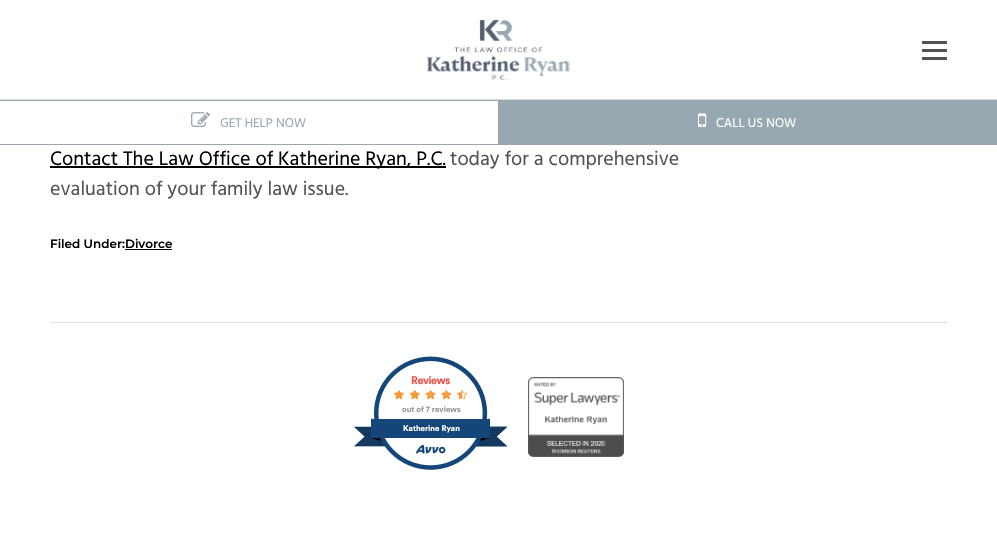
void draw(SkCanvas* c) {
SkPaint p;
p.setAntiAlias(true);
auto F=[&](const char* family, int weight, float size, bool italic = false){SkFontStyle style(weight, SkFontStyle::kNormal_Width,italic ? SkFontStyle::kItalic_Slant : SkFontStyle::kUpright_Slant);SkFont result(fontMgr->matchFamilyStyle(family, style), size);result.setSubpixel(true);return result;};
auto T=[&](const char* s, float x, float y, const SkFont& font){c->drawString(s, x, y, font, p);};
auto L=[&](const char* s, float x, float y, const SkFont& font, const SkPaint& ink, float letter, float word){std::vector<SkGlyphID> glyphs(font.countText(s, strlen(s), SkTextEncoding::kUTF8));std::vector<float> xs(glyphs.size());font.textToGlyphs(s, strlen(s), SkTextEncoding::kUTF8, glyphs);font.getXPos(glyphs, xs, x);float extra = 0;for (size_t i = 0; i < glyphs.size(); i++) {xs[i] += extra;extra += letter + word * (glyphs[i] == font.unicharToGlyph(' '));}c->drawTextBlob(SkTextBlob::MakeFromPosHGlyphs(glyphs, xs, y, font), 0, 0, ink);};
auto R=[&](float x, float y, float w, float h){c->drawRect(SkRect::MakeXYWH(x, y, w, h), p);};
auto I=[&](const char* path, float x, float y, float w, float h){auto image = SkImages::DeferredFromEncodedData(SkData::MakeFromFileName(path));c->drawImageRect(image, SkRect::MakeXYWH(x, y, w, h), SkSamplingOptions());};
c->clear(0xffffffff);
p.setColor(0xff525254);
R(922,49,25,3);
R(922,41,25,3);
R(922,57,25,3);
p.setColor(0xffdddddd);
R(0,99,997,1);
I("1.png",427,20,144,60);
p.setColor(0xff98a8b1);
R(0,100,499,1);
R(498,100,499,45);
R(0,144,499,1);
I("2.png",191,112,19,15);
auto f1 = F("Hind",400,13);
T("GET HELP NOW",220,127,f1);
I("3.png",698,113,9,14);
p.setColor(0xffffffff);
T("CALL US NOW",716,127,f1);
p.setColor(0xff000000);
R(50,166,396,2);
auto f2 = F("Hind",400,20);
T("Contact The Law Office of Katherine Ryan, P.C.",50,165,f2);
p.setColor(0xff525254);
T("today for a comprehensive",450,165,f2);
T("evaluation of your family law issue.",50,195,f2);
auto f3 = F("Montserrat",100,12);
p.setColor(0xff000000);
T("Filed Under:Divorce",50,248,f3);
R(125,249,47,1);
p.setColor(0xffdddddd);
R(50,322,897,1);
I("4.png",354,356,154,114);
auto f4 = F("Circular",700,11);
p.setColor(0xffed514c);
L("Reviews",411,384,f4,p,-.5,0);
auto f5 = F("Circular",700,8);
p.setColor(0xff969696);
T("out of 7 reviews",402,412,f5);
p.setColor(0xffffffff);
T("Katherine Ryan",403,431,f5);
I("5.png",528,377,96,80);
}
